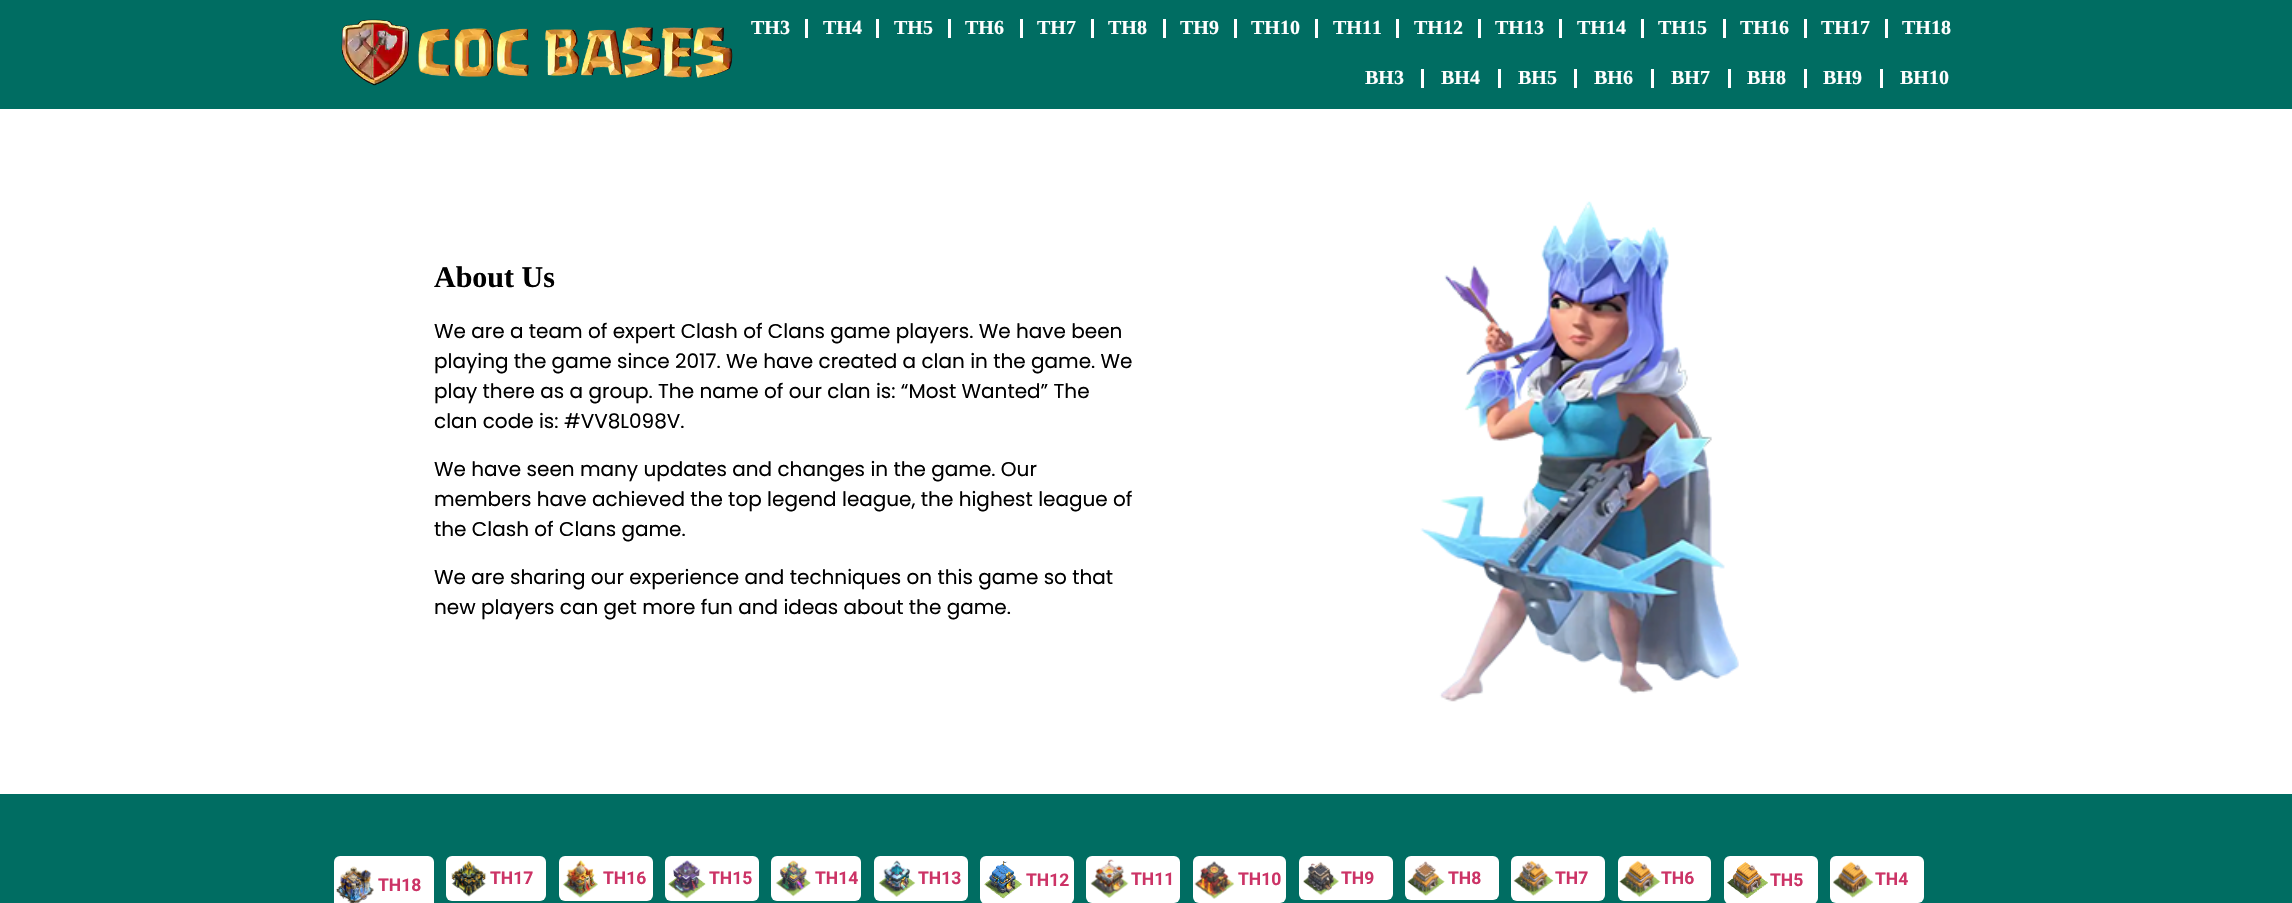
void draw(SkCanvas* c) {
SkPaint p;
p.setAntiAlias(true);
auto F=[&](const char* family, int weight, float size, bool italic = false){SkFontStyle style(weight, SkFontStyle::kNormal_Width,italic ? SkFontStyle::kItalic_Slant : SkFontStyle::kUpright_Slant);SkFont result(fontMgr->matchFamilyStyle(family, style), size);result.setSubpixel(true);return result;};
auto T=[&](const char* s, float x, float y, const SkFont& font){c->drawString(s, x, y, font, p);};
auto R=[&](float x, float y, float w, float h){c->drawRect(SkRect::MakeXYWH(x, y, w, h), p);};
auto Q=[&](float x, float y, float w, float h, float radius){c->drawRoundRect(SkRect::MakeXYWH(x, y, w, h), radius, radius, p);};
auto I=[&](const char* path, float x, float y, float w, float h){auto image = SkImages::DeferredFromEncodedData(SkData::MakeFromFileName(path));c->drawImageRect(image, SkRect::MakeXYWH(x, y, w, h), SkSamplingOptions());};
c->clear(0xffffffff);
p.setColor(0xff006d62);
R(0,0,2292,109);
I("1.png",341,19,392,67);
auto f1 = F("Liberation Serif",700,20);
p.setColor(0xffffffff);
T("TH3",751,34,f1);
R(805,19,3,19);
T("TH4",823,34,f1);
R(876,19,3,19);
T("TH5",894,34,f1);
R(948,19,3,19);
T("TH6",965,34,f1);
R(1020,19,3,19);
T("TH7",1037,34,f1);
R(1091,19,3,19);
T("TH8",1108,34,f1);
R(1163,19,3,19);
T("TH9",1180,34,f1);
R(1234,19,3,19);
T("TH10",1251,34,f1);
R(1315,19,3,19);
T("TH11",1333,34,f1);
R(1396,19,3,19);
T("TH12",1414,34,f1);
R(1478,19,3,19);
T("TH13",1495,34,f1);
R(1559,19,3,19);
T("TH14",1577,34,f1);
R(1641,19,3,19);
T("TH15",1658,34,f1);
R(1723,19,3,19);
T("TH16",1740,34,f1);
R(1804,19,3,19);
T("TH17",1821,34,f1);
R(1885,19,3,19);
T("TH18",1902,34,f1);
T("BH3",1365,84,f1);
R(1421,69,3,19);
T("BH4",1441,84,f1);
R(1498,69,3,19);
T("BH5",1518,84,f1);
R(1574,69,3,19);
T("BH6",1594,84,f1);
R(1651,69,3,19);
T("BH7",1671,84,f1);
R(1728,69,3,19);
T("BH8",1747,84,f1);
R(1804,69,3,19);
T("BH9",1823,84,f1);
R(1880,69,3,19);
T("BH10",1900,84,f1);
auto f2 = F("Liberation Serif",700,30);
p.setColor(0xff000000);
T("About Us",434,287,f2);
auto f3 = F("Poppins",400,20);
T("We are a team of expert Clash of Clans game players. We have been",434,338,f3);
T("playing the game since 2017. We have created a clan in the game. We",434,368,f3);
T("play there as a group. The name of our clan is: “Most Wanted” The",434,398,f3);
T("clan code is: #VV8L098V.",434,428,f3);
T("We have seen many updates and changes in the game. Our",434,476,f3);
T("members have achieved the top legend league, the highest league of",434,506,f3);
T("the Clash of Clans game.",434,536,f3);
T("We are sharing our experience and techniques on this game so that",434,584,f3);
T("new players can get more fun and ideas about the game.",434,614,f3);
I("2.png",1420,201,319,501);
p.setColor(0xff006d62);
R(0,794,2292,109);
p.setColor(0xffffffff);
Q(334,856,100,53,6);
I("3.png",336,866,38,37);
auto f4 = F("Roboto",700,17.5);
p.setColor(0xffcc3366);
T("TH18",378,891,f4);
p.setColor(0xffffffff);
Q(446,856,100,45,6);
I("4.png",451,860,36,37);
p.setColor(0xffcc3366);
T("TH17",490,884,f4);
p.setColor(0xffffffff);
Q(559,856,94,45,6);
I("5.png",562,860,36,38);
p.setColor(0xffcc3366);
T("TH16",603,884,f4);
p.setColor(0xffffffff);
Q(665,856,94,45,6);
I("6.png",668,860,38,39);
p.setColor(0xffcc3366);
T("TH15",709,884,f4);
p.setColor(0xffffffff);
Q(771,856,90,45,6);
I("7.png",775,860,36,37);
p.setColor(0xffcc3366);
T("TH14",815,884,f4);
p.setColor(0xffffffff);
Q(874,856,94,45,6);
I("8.png",878,860,38,37);
p.setColor(0xffcc3366);
T("TH13",918,884,f4);
p.setColor(0xffffffff);
Q(980,856,94,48,6);
I("9.png",984,861,38,38);
p.setColor(0xffcc3366);
T("TH12",1026,886,f4);
p.setColor(0xffffffff);
Q(1086,856,94,47,6);
I("10.png",1090,859,39,39);
p.setColor(0xffcc3366);
T("TH11",1131,885,f4);
p.setColor(0xffffffff);
Q(1193,856,93,47,6);
I("11.png",1194,861,41,38);
p.setColor(0xffcc3366);
T("TH10",1238,885,f4);
p.setColor(0xffffffff);
Q(1299,856,94,44,6);
I("12.png",1303,861,36,35);
p.setColor(0xffcc3366);
T("TH9",1341,884,f4);
p.setColor(0xffffffff);
Q(1405,856,94,44,6);
I("13.png",1407,861,38,35);
p.setColor(0xffcc3366);
T("TH8",1448,884,f4);
p.setColor(0xffffffff);
Q(1511,856,94,45,6);
I("14.png",1513,860,41,36);
p.setColor(0xffcc3366);
T("TH7",1555,884,f4);
p.setColor(0xffffffff);
Q(1618,856,93,45,6);
I("15.png",1619,860,42,38);
p.setColor(0xffcc3366);
T("TH6",1661,884,f4);
p.setColor(0xffffffff);
Q(1724,856,94,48,6);
I("16.png",1727,862,41,37);
p.setColor(0xffcc3366);
T("TH5",1770,886,f4);
p.setColor(0xffffffff);
Q(1830,856,94,47,6);
I("17.png",1833,861,41,37);
p.setColor(0xffcc3366);
T("TH4",1875,885,f4);
}
